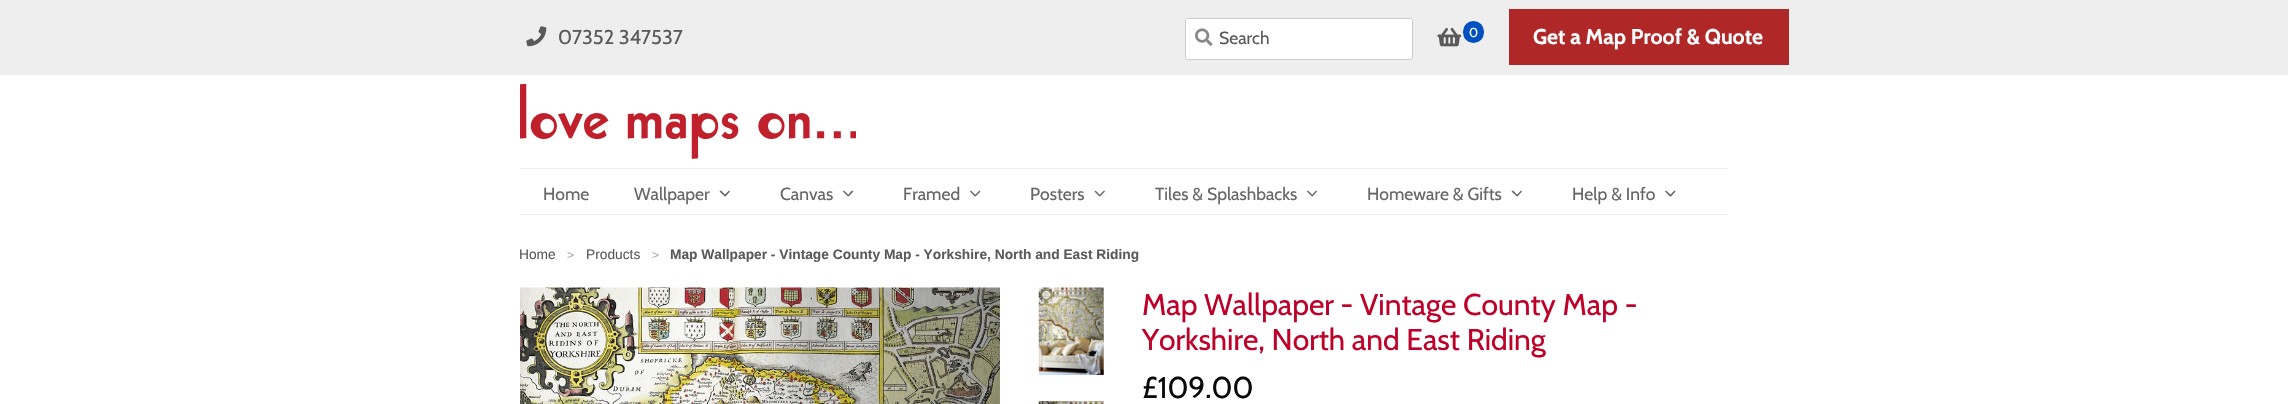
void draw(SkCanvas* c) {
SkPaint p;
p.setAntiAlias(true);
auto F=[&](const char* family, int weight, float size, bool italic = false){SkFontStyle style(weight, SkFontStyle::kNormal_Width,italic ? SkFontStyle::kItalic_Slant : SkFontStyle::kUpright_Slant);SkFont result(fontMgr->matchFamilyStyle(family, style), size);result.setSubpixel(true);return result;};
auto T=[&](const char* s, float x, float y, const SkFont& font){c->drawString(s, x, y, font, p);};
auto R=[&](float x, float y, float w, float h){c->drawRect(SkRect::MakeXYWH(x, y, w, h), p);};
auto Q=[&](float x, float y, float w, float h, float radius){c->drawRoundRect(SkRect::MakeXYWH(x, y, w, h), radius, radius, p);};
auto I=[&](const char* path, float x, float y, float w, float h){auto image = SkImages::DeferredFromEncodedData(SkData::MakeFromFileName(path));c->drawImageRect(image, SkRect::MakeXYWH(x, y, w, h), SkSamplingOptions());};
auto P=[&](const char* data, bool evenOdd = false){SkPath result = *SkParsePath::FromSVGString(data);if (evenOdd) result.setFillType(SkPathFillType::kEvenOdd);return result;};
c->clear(0xffffffff);
p.setColor(0xffeeeeee);
R(0,0,2288,75);
I("1.png",526,26,21,21);
auto f1 = F("Cabin",400,20);
p.setColor(0xff5a5a5a);
T("07352 347537",558,44,f1);
p.setColor(0xffffffff);
c->drawRoundRect(SkRect::MakeXYWH(1185.5,18.5,227,41),2,2,p);
p.setStroke(true);
p.setStrokeWidth(1);
p.setColor(0xffcccccc);
c->drawRoundRect(SkRect::MakeXYWH(1185.5,18.5,227,41),2,2,p);
I("2.png",1195,28,18,18);
auto f2 = F("Cabin",400,17.5);
p.setStroke(false);
p.setColor(0xff5a5a5a);
T("Search",1219,44,f2);
I("3.png",1437,27,25,20);
p.setColor(0xff0050bf);
Q(1463,21,21,22,10.5);
auto f3 = F("Cabin",400,13);
p.setColor(0xffffffff);
T("0",1469,37,f3);
p.setColor(0xffb02727);
R(1509,9,280,56);
auto f4 = F("Cabin",700,21.25);
p.setColor(0xffffffff);
T("Get a Map Proof & Quote",1533,44,f4);
I("4.png",520,84,336,75);
p.setColor(0xffecf0f1);
R(520,168,1208,1);
R(520,214,1208,1);
p.setColor(0xff666666);
T("Home",543,200,f2);
T("Wallpaper",634,200,f2);
c->drawPath(P("M729 190.5l1 1l-4.5 5l-1.5-1z"),p);
c->drawPath(P("M721 190.5l5 5l-1 1l-5.5-5z"),p);
T("Canvas",780,200,f2);
c->drawPath(P("M852 190.5l1.5 1l-5 5l-1-1z"),p);
c->drawPath(P("M844 190.5l5 5l-1 1l-5-5z"),p);
T("Framed",903,200,f2);
c->drawPath(P("M979.5 190.5l1 1l-5 5l-1-1z"),p);
c->drawPath(P("M971 190.5l5 5l-1 1l-5-5z"),p);
T("Posters",1030,200,f2);
c->drawPath(P("M1104 190.5l1 1l-5 5l-1-1z"),p);
c->drawPath(P("M1095.5 190.5l5 5l-1 1l-5-5z"),p);
T("Tiles & Splashbacks",1155,200,f2);
c->drawPath(P("M1316 190.5l1 1l-4.5 5l-1-1z"),p);
c->drawPath(P("M1308 190.5l5 5l-1 1l-5-5z"),p);
T("Homeware & Gifts",1367,200,f2);
c->drawPath(P("M1521 190.5l1 1l-4.5 5l-1-1z"),p);
c->drawPath(P("M1513 190.5l5 5l-1 1l-5.5-5z"),p);
T("Help & Info",1572,200,f2);
c->drawPath(P("M1674.5 190.5l1 1l-4.5 5l-1.5-1z"),p);
c->drawPath(P("M1666 190.5l5.5 5l-1.5 1l-5-5z"),p);
auto f5 = F("Liberation Sans",400,13.75);
p.setColor(0xff5a5a5a);
T("Home",519,259,f5);
auto f6 = F("Liberation Sans",400,12);
p.setColor(0xffaaaaaa);
T(">",567,259,f6);
p.setColor(0xff5a5a5a);
T("Products",586,259,f5);
p.setColor(0xffaaaaaa);
T(">",652,259,f6);
auto f7 = F("Liberation Sans",700,13.75);
p.setColor(0xff5a5a5a);
T("Map Wallpaper - Vintage County Map - Yorkshire, North and East Riding",670,259,f7);
I("5.png",520,287,480,117);
I("6.png",1038,287,66,88);
I("7.png",1038,401,66,3);
auto f8 = F("Cabin",400,30);
p.setColor(0xffbf0028);
T("Map Wallpaper - Vintage County Map -",1142,315,f8);
T("Yorkshire, North and East Riding",1142,350,f8);
p.setColor(0xff0a0a0a);
T("£109.00",1142,398,f8);
}
